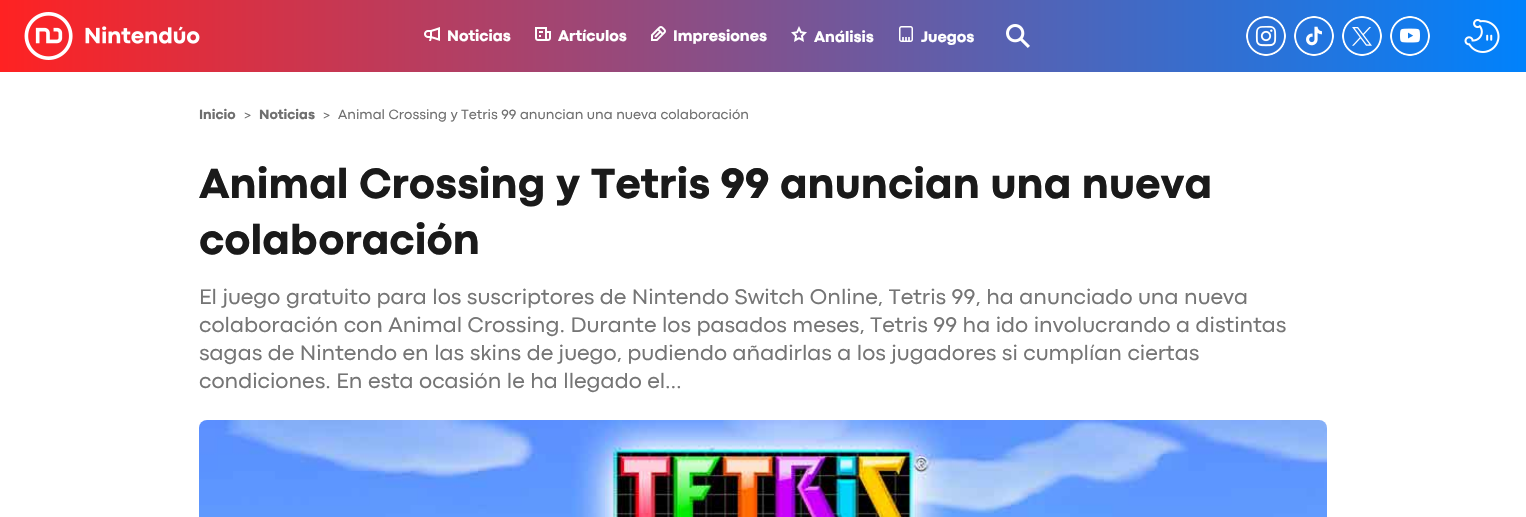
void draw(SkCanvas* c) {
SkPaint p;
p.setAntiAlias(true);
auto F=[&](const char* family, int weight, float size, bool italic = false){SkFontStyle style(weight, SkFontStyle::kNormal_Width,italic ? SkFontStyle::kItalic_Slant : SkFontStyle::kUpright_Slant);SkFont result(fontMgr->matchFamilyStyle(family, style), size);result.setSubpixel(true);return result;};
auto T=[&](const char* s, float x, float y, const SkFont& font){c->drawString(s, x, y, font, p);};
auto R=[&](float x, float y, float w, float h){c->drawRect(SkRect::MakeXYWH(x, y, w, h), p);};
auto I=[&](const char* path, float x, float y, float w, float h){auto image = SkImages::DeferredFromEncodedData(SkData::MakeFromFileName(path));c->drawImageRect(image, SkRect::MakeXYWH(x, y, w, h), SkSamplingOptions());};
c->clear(0xffffffff);
{
const SkColor colors[] = {0xffff2222,0xff0082fc};
const float stops[] = {0,1};
const SkPoint ends[] = {{0,36}, {1526,36}};
p.setShader(SkGradientShader::MakeLinear(ends, colors, stops, 2, SkTileMode::kClamp));
p.setAlpha(255);
}
R(0,0,1526,72);
I("1.png",24,12,176,48);
I("2.png",424,27,16,14);
auto f1 = F("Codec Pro",800,16);
p.setShader(nullptr);
p.setColor(0xffffffff);
T("Noticias",447,41,f1);
I("3.png",535,27,16,14);
T("Artículos",558,41,f1);
I("4.png",651,26,15,15);
T("Impresiones",673,41,f1);
I("5.png",791,26,16,16);
T("Análisis",814,42,f1);
I("6.png",899,26,14,16);
T("Juegos",921,42,f1);
I("7.png",1006,24,24,24);
I("8.png",1246,16,40,40);
I("9.png",1294,16,40,40);
I("10.png",1342,16,40,40);
I("11.png",1390,16,40,40);
I("12.png",1464,19,36,34);
auto f2 = F("Codec Pro",800,14);
p.setColor(0xff6f6f6f);
T("Inicio",199,119,f2);
auto f3 = F("Codec Pro",400,14);
T(">",244,119,f3);
T("Noticias",259,119,f2);
T(">",323,119,f3);
T("Animal Crossing y Tetris 99 anuncian una nueva colaboración",338,119,f3);
auto f4 = F("Codec Pro",800,44);
p.setColor(0xff1a1a1a);
T("Animal Crossing y Tetris 99 anuncian una nueva",199,198,f4);
T("colaboración",199,254,f4);
auto f5 = F("Codec Pro",400,22);
p.setColor(0xff757575);
T("El juego gratuito para los suscriptores de Nintendo Switch Online, Tetris 99, ha anunciado una nueva",199,304,f5);
T("colaboración con Animal Crossing. Durante los pasados meses, Tetris 99 ha ido involucrando a distintas",199,332,f5);
T("sagas de Nintendo en las skins de juego, pudiendo añadirlas a los jugadores si cumplían ciertas",199,360,f5);
T("condiciones. En esta ocasión le ha llegado el…",199,388,f5);
I("13.png",199,420,1128,97);
}
